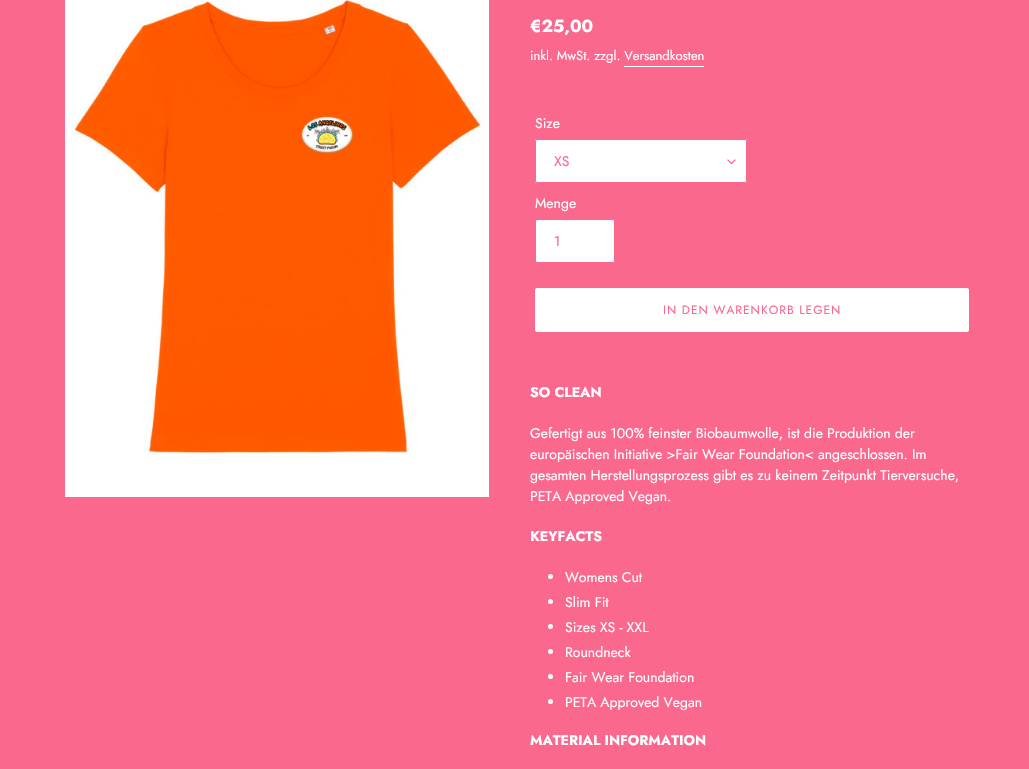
void draw(SkCanvas* c) {
SkPaint p;
p.setAntiAlias(true);
auto F=[&](const char* family, int weight, float size, bool italic = false){SkFontStyle style(weight, SkFontStyle::kNormal_Width,italic ? SkFontStyle::kItalic_Slant : SkFontStyle::kUpright_Slant);SkFont result(fontMgr->matchFamilyStyle(family, style), size);result.setSubpixel(true);return result;};
auto T=[&](const char* s, float x, float y, const SkFont& font){c->drawString(s, x, y, font, p);};
auto L=[&](const char* s, float x, float y, const SkFont& font, const SkPaint& ink, float letter, float word){std::vector<SkGlyphID> glyphs(font.countText(s, strlen(s), SkTextEncoding::kUTF8));std::vector<float> xs(glyphs.size());font.textToGlyphs(s, strlen(s), SkTextEncoding::kUTF8, glyphs);font.getXPos(glyphs, xs, x);float extra = 0;for (size_t i = 0; i < glyphs.size(); i++) {xs[i] += extra;extra += letter + word * (glyphs[i] == font.unicharToGlyph(' '));}c->drawTextBlob(SkTextBlob::MakeFromPosHGlyphs(glyphs, xs, y, font), 0, 0, ink);};
auto R=[&](float x, float y, float w, float h){c->drawRect(SkRect::MakeXYWH(x, y, w, h), p);};
auto Q=[&](float x, float y, float w, float h, float radius){c->drawRoundRect(SkRect::MakeXYWH(x, y, w, h), radius, radius, p);};
auto I=[&](const char* path, float x, float y, float w, float h){auto image = SkImages::DeferredFromEncodedData(SkData::MakeFromFileName(path));c->drawImageRect(image, SkRect::MakeXYWH(x, y, w, h), SkSamplingOptions());};
c->clear(0xfffa688d);
I("1.png",65,0,424,497);
auto f1 = F("Jost",700,17.5);
p.setColor(0xffffffff);
T("€25,00",530,32,f1);
auto f2 = F("Jost",400,13);
T("inkl. MwSt. zzgl. Versandkosten",530,60,f2);
R(624,66,80,1);
auto f3 = F("Jost",400,14);
T("Size",535,128,f3);
Q(535,139,212,44,2);
I("2.png",727,159,9,6);
p.setStroke(true);
p.setStrokeWidth(1);
p.setColor(0xfffa688d);
c->drawRoundRect(SkRect::MakeXYWH(535.5,139.5,211,43),1.5,1.5,p);
p.setStroke(false);
T("XS",554,166,f3);
p.setColor(0xffffffff);
T("Menge",535,208,f3);
c->drawRoundRect(SkRect::MakeXYWH(535.5,219.5,79,43),1.5,1.5,p);
p.setStroke(true);
p.setColor(0xfffa688d);
c->drawRoundRect(SkRect::MakeXYWH(535.5,219.5,79,43),1.5,1.5,p);
p.setStroke(false);
T("1",554,246,f3);
p.setColor(0xffffffff);
Q(535,288,434,44,2);
auto f4 = F("Jost",400,12);
p.setColor(0xfffa688d);
L("IN DEN WARENKORB LEGEN",663,314,f4,p,1,0);
auto f5 = F("Jost",700,14);
p.setColor(0xffffffff);
T("SO CLEAN",530,397,f5);
T("Gefertigt aus 100% feinster Biobaumwolle, ist die Produktion der",530,438,f3);
T("europäischen Initiative >Fair Wear Foundation< angeschlossen. Im",530,459,f3);
T("gesamten Herstellungsprozess gibt es zu keinem Zeitpunkt Tierversuche,",530,480,f3);
T("PETA Approved Vegan.",530,501,f3);
T("KEYFACTS",530,541,f5);
c->drawCircle(550.5,576.5,2.5,p);
T("Womens Cut",565,582,f3);
c->drawCircle(550.5,601.5,2.5,p);
T("Slim Fit",565,607,f3);
c->drawCircle(550.5,626.5,2.5,p);
T("Sizes XS - XXL",565,632,f3);
c->drawCircle(550.5,651.5,2.5,p);
T("Roundneck",565,657,f3);
c->drawCircle(550.5,676.5,2.5,p);
T("Fair Wear Foundation",565,682,f3);
c->drawCircle(550.5,701.5,2.5,p);
T("PETA Approved Vegan",565,707,f3);
T("MATERIAL INFORMATION",530,745,f5);
}
